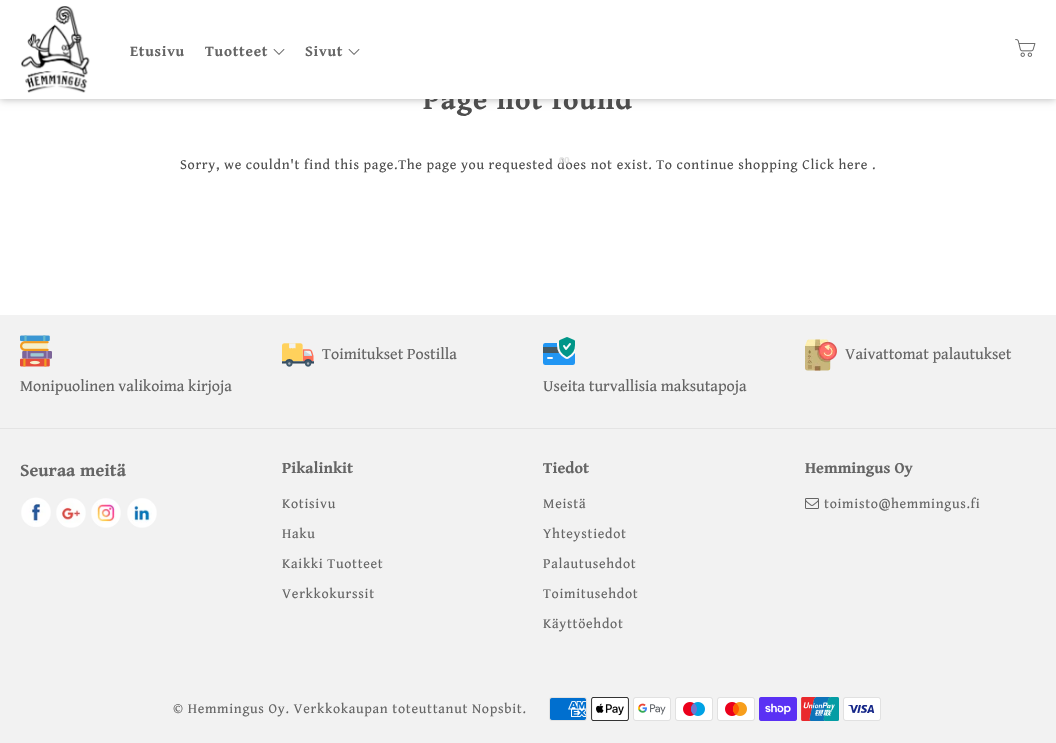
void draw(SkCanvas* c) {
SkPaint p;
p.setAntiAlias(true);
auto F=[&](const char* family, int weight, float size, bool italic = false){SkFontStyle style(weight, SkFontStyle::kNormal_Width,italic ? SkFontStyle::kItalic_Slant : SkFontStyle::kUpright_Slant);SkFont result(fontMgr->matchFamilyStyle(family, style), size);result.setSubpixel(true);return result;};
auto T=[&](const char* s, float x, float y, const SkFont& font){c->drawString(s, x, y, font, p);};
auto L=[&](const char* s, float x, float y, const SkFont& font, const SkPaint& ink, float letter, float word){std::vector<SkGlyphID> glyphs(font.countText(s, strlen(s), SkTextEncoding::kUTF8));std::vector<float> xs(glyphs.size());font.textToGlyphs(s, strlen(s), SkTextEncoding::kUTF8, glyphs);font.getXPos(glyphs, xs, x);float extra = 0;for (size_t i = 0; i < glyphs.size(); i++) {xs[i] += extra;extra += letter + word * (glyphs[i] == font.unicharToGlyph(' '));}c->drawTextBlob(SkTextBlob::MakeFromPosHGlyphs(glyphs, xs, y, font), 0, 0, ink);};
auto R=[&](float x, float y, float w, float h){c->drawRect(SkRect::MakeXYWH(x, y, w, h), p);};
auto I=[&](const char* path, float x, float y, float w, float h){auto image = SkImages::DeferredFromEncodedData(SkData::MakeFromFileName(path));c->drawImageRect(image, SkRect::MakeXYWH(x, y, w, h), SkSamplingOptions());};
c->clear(0xffffffff);
p.setColor(0x4d000000);
p.setMaskFilter(SkMaskFilter::MakeBlur(kNormal_SkBlurStyle, 4));
c->drawRect(SkRect::MakeXYWH(0,0,1056,99),p);
p.setMaskFilter(nullptr);
auto f1 = F("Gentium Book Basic",700,29);
p.setColor(0xff4d4d4d);
L("Page not found",423,109,f1,p,1,0);
p.setColor(0xffffffff);
R(0,0,1056,99);
I("1.png",21,6,69,87);
auto f2 = F("Gentium Book Basic",700,15);
p.setColor(0xff656565);
L("Etusivu",130,56,f2,p,.75,0);
L("Tuotteet",205,56,f2,p,.75,0);
I("2.png",273,49,12,6);
L("Sivut",305,56,f2,p,.75,0);
I("2.png",348,49,12,6);
I("3.png",1015,39,21,18);
auto f3 = F("Gentium Book Basic",400,14);
p.setColor(0xff4d4d4d);
L("Sorry, we couldn't find this page.The page you requested does not exist. To continue shopping Click here .",180,169,f3,p,.7,0);
p.setColor(0xfff2f2f2);
R(0,315,1056,113);
p.setColor(0xffe4e4e4);
R(0,428,1056,1);
I("4.png",282,343,32,24);
auto f4 = F("Gentium Book Basic",400,16);
p.setColor(0xff656565);
T("Toimitukset Postilla",322,359,f4);
I("5.png",805,339,32,32);
T("Vaivattomat palautukset",845,359,f4);
I("6.png",20,335,32,32);
T("Monipuolinen valikoima kirjoja",20,391,f4);
I("7.png",543,337,32,28);
T("Useita turvallisia maksutapoja",543,391,f4);
p.setColor(0xfff2f2f2);
R(0,429,1056,314);
auto f5 = F("Gentium Book Basic",700,18);
p.setColor(0xff656565);
T("Seuraa meitä",20,476,f5);
I("8.png",21,497,30,30);
I("9.png",56,498,30,30);
I("10.png",91,498,30,30);
I("11.png",127,498,30,30);
auto f6 = F("Gentium Book Basic",700,16);
T("Pikalinkit",282,473,f6);
L("Kotisivu",282,508,f3,p,.7,0);
L("Haku",282,538,f3,p,.7,0);
L("Kaikki Tuotteet",282,568,f3,p,.7,0);
L("Verkkokurssit",282,598,f3,p,.7,0);
T("Tiedot",543,473,f6);
L("Meistä",543,508,f3,p,.7,0);
L("Yhteystiedot",543,538,f3,p,.7,0);
L("Palautusehdot",543,568,f3,p,.7,0);
L("Toimitusehdot",543,598,f3,p,.7,0);
L("Käyttöehdot",543,628,f3,p,.7,0);
T("Hemmingus Oy",805,473,f6);
I("12.png",805,498,14,11);
L("toimisto@hemmingus.fi",824,508,f3,p,.7,0);
L("© Hemmingus Oy. Verkkokaupan toteuttanut Nopsbit.",173,713,f3,p,.7,0);
I("13.png",549,697,38,24);
I("14.png",591,697,38,24);
I("15.png",633,697,38,24);
I("16.png",675,697,38,24);
I("17.png",717,697,38,24);
I("18.png",759,697,38,24);
I("19.png",801,697,38,24);
I("20.png",843,697,38,24);
auto f7 = F("Gentium Book Basic",700,10);
p.setColor(0xffe3e3e3);
T("00",559,163,f7);
}
